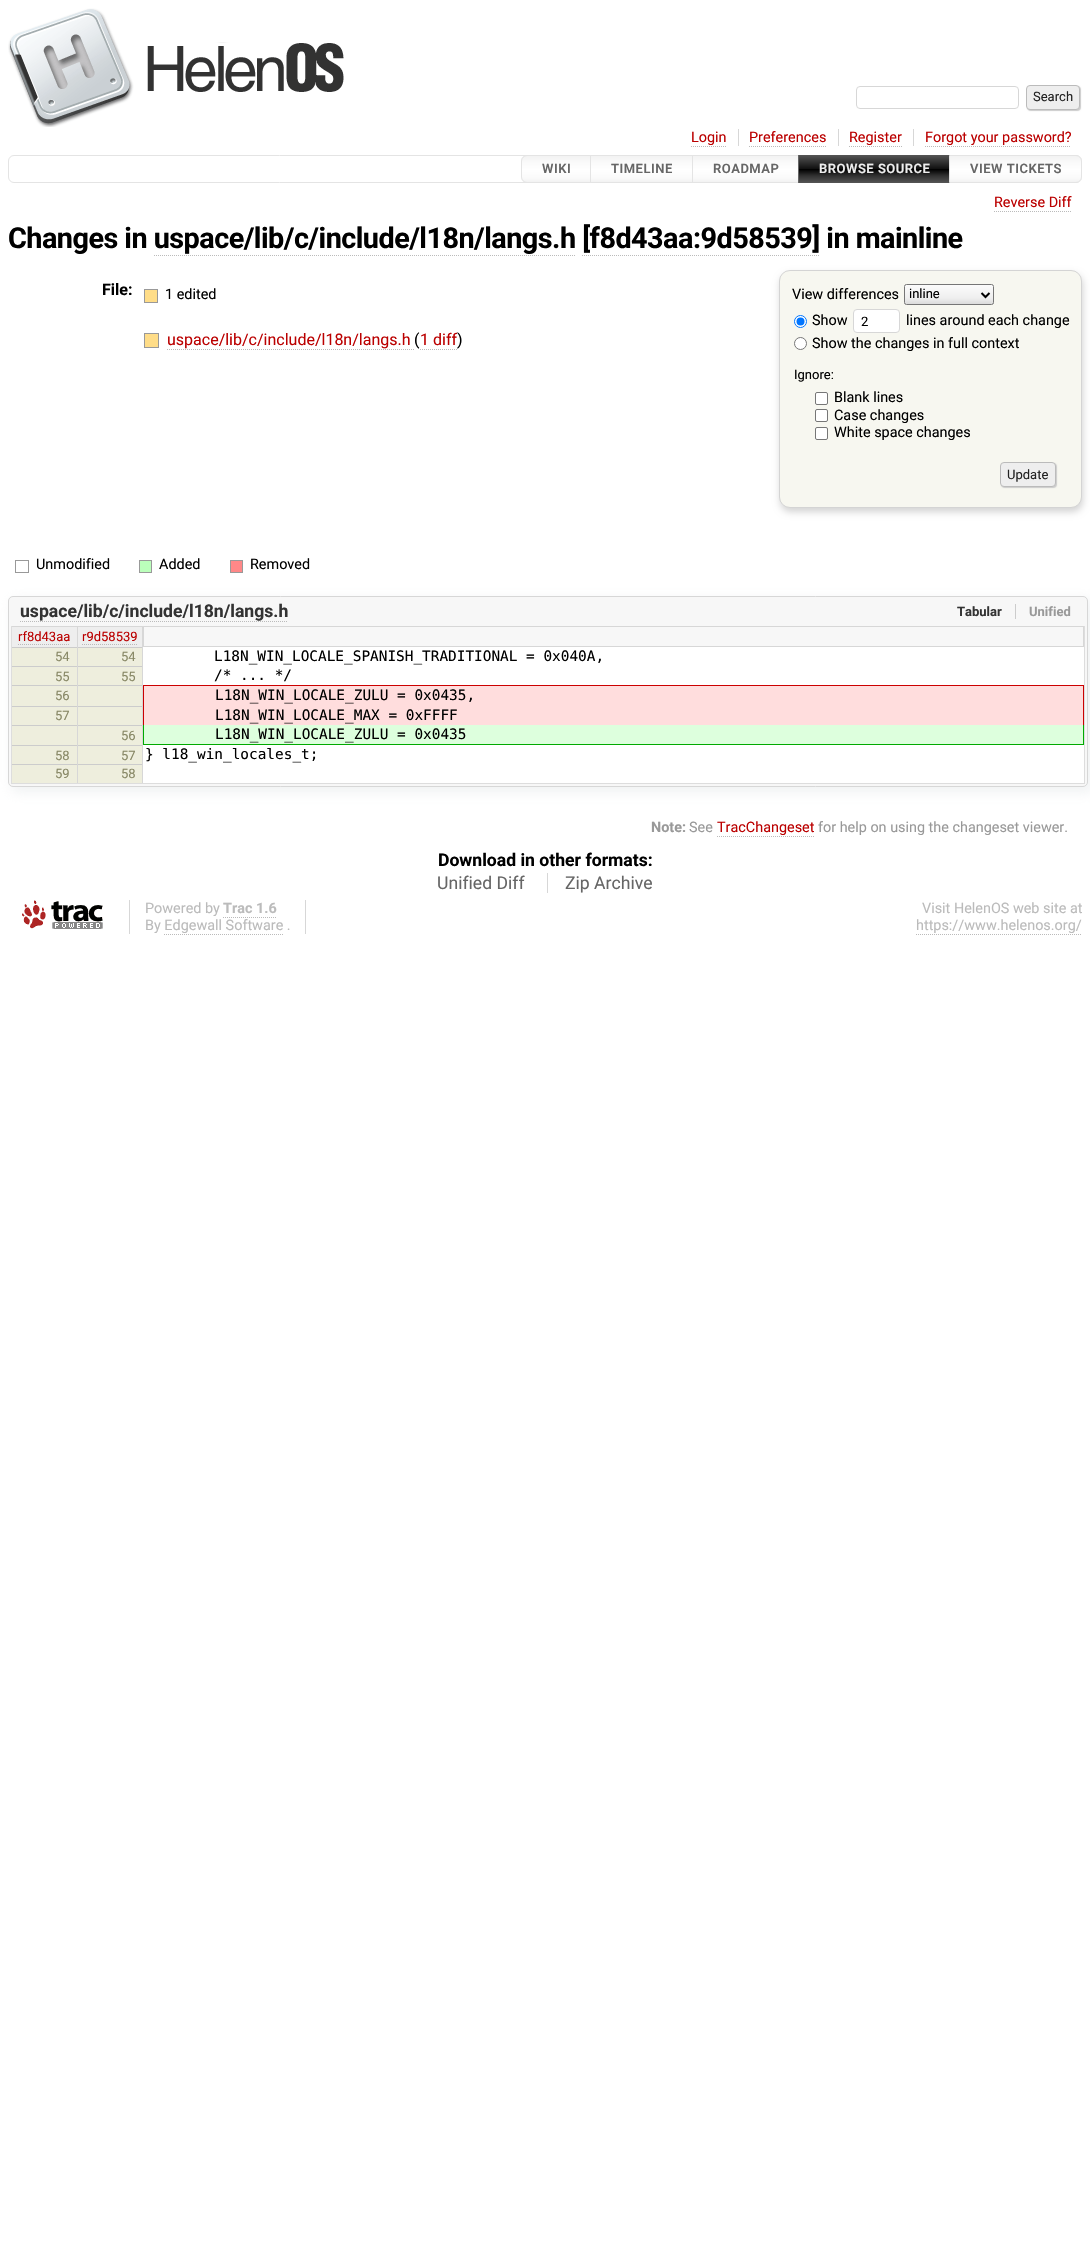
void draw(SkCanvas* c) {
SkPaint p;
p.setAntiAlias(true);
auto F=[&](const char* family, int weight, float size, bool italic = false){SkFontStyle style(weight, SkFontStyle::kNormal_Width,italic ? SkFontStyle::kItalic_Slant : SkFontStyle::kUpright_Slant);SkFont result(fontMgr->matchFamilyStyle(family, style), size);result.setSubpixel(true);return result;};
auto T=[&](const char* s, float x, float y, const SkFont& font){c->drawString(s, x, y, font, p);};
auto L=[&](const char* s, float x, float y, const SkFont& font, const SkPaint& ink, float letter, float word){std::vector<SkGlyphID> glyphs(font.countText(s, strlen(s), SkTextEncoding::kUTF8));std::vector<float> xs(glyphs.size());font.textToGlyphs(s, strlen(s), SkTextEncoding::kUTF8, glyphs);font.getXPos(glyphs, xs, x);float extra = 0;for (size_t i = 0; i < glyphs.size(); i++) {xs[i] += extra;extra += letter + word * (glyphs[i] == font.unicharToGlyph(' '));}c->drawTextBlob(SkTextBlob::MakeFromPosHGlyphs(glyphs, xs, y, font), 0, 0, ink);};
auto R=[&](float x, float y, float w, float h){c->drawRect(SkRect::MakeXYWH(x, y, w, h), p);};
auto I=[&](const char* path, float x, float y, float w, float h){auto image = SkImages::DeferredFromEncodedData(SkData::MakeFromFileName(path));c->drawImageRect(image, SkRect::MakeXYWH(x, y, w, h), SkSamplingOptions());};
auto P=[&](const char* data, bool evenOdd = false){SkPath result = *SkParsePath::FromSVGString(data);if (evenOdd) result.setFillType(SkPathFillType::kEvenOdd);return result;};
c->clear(0xffffffff);
I("1.png",8,8,336,119);
p.setStroke(true);
p.setStrokeWidth(1);
p.setColor(0xffd7d7d7);
c->drawRoundRect(SkRect::MakeXYWH(856.5,86.5,162,22),3.5,3.5,p);
p.setStroke(false);
p.setColor(0xffcccccc);
p.setMaskFilter(SkMaskFilter::MakeBlur(kNormal_SkBlurStyle, .5));
c->drawRoundRect(SkRect::MakeXYWH(1027,86,54,25),4,4,p);
p.setMaskFilter(nullptr);
p.setColor(0xffeeeeee);
c->drawRoundRect(SkRect::MakeXYWH(1026.5,85.5,53,24),3.5,3.5,p);
p.setStroke(true);
p.setColor(0xffbbbbbb);
c->drawRoundRect(SkRect::MakeXYWH(1026.5,85.5,53,24),3.5,3.5,p);
auto f1 = F("Roboto",400,13);
p.setStroke(false);
p.setColor(0xff222222);
T("Search",1033,101,f1);
p.setColor(0xffd7d7d7);
R(738,129,1,17);
auto f2 = F("Roboto",400,14.4);
p.setColor(0xffbb0000);
T("Login",691,142,f2);
p.setStroke(true);
p.setColor(0xffbbbbbb);
p.setPathEffect(SkDashPathEffect::Make({{1,1}}, 0));
c->drawPath(P("M691 146.5h36"),p);
p.setPathEffect(nullptr);
p.setStroke(false);
p.setColor(0xffd7d7d7);
R(838,129,1,17);
p.setColor(0xffbb0000);
T("Preferences",749,142,f2);
p.setStroke(true);
p.setColor(0xffbbbbbb);
p.setPathEffect(SkDashPathEffect::Make({{1,1}}, 0));
c->drawPath(P("M749 146.5h78"),p);
p.setPathEffect(nullptr);
p.setStroke(false);
p.setColor(0xffd7d7d7);
R(913,129,1,17);
p.setColor(0xffbb0000);
T("Register",849,142,f2);
p.setStroke(true);
p.setColor(0xffbbbbbb);
p.setPathEffect(SkDashPathEffect::Make({{1,1}}, 0));
c->drawPath(P("M849 146.5h53"),p);
p.setPathEffect(nullptr);
p.setStroke(false);
p.setColor(0xffbb0000);
T("Forgot your password?",925,142,f2);
p.setStroke(true);
p.setColor(0xffbbbbbb);
p.setPathEffect(SkDashPathEffect::Make({{1,1}}, 0));
c->drawPath(P("M925 146.5h146"),p);
p.setPathEffect(nullptr);
p.setColor(0xffe4e4e4);
c->drawRoundRect(SkRect::MakeXYWH(8.5,155.5,1073,27),5.5,5.5,p);
c->save();
c->clipPath(P("M527 155h65v28h-65c-3.5 0-6-2.5-6-6v-16c0-3.5 2.5-6 6-6z"),true);
p.setStroke(false);
{
const SkColor colors[] = {0xfff2f2f2,0xfffafafa,0xfffefefe,0xffffffff,0xfffafafa,0xfff2f2f2};
const float stops[] = {0,.25,.49,.51,.85,1};
const SkPoint ends[] = {{557,156}, {557,182}};
p.setShader(SkGradientShader::MakeLinear(ends, colors, stops, 6, SkTileMode::kClamp));
p.setAlpha(255);
}
R(521,156,69,26);
c->restore();
p.setStroke(true);
p.setShader(nullptr);
p.setColor(0xffe4e4e4);
c->drawPath(P("M527 155.5h64.5v27h-64.5c-3 0-5.5-2.5-5.5-5.5v-16c0-3 2.5-5.5 5.5-5.5z"),p);
auto f3 = F("Roboto",600,13);
p.setStroke(false);
p.setColor(0xff666666);
L("WIKI",542,173,f3,p,.5,0);
{
const SkColor colors[] = {0xfff2f2f2,0xfffafafa,0xfffefefe,0xffffffff,0xfffafafa,0xfff2f2f2};
const float stops[] = {0,.25,.49,.51,.85,1};
const SkPoint ends[] = {{642,156}, {642,182}};
p.setShader(SkGradientShader::MakeLinear(ends, colors, stops, 6, SkTileMode::kClamp));
p.setAlpha(255);
}
R(591,156,101,26);
p.setStroke(true);
p.setShader(nullptr);
p.setColor(0xffe4e4e4);
c->drawRect(SkRect::MakeXYWH(590.5,155.5,102,27),p);
p.setStroke(false);
p.setColor(0xff666666);
L("TIMELINE",611,173,f3,p,.5,0);
{
const SkColor colors[] = {0xfff2f2f2,0xfffafafa,0xfffefefe,0xffffffff,0xfffafafa,0xfff2f2f2};
const float stops[] = {0,.25,.49,.51,.85,1};
const SkPoint ends[] = {{746,156}, {746,182}};
p.setShader(SkGradientShader::MakeLinear(ends, colors, stops, 6, SkTileMode::kClamp));
p.setAlpha(255);
}
R(693,156,105,26);
p.setStroke(true);
p.setShader(nullptr);
p.setColor(0xffe4e4e4);
c->drawRect(SkRect::MakeXYWH(692.5,155.5,107,27),p);
p.setStroke(false);
p.setColor(0xff666666);
L("ROADMAP",713,173,f3,p,.5,0);
p.setStroke(true);
c->drawRect(SkRect::MakeXYWH(798.5,155.5,152,27),p);
p.setStroke(false);
{
const SkColor colors[] = {0xff555555,0xff333333,0xff111111,0xff000000,0xff333333,0xff555555};
const float stops[] = {0,.25,.49,.51,.75,1};
const SkPoint ends[] = {{875,155}, {875,183}};
p.setShader(SkGradientShader::MakeLinear(ends, colors, stops, 6, SkTileMode::kClamp));
p.setAlpha(255);
}
R(799,155,150,28);
p.setShader(nullptr);
p.setColor(0xffeeeeee);
L("BROWSE SOURCE",819,173,f3,p,.5,0);
c->save();
c->clipPath(P("M949 155h127c3.5 0 6 2.5 6 6v16c0 3.5-2.5 6-6 6h-127z"),true);
{
const SkColor colors[] = {0xfff2f2f2,0xfffafafa,0xfffefefe,0xffffffff,0xfffafafa,0xfff2f2f2};
const float stops[] = {0,.25,.49,.51,.85,1};
const SkPoint ends[] = {{1016,156}, {1016,182}};
p.setShader(SkGradientShader::MakeLinear(ends, colors, stops, 6, SkTileMode::kClamp));
p.setAlpha(255);
}
R(950,156,132,26);
c->restore();
p.setStroke(true);
p.setShader(nullptr);
p.setColor(0xffe4e4e4);
c->drawPath(P("M949.5 155.5h126.5c3 0 5.5 2.5 5.5 5.5v16c0 3-2.5 5.5-5.5 5.5h-126.5z"),p);
p.setStroke(false);
p.setColor(0xff666666);
L("VIEW TICKETS",970,173,f3,p,.5,0);
p.setColor(0xffbb0000);
T("Reverse Diff",994,207,f2);
p.setStroke(true);
p.setColor(0xffbbbbbb);
p.setPathEffect(SkDashPathEffect::Make({{1,1}}, 0));
c->drawPath(P("M994 211.5h77"),p);
p.setPathEffect(nullptr);
auto f4 = F("Roboto",700,28.8);
p.setStroke(false);
p.setColor(0xff000000);
L("Changes in uspace/lib/c/include/l18n/langs.h [f8d43aa:9d58539] in mainline",8,248,f4,p,-.52,0);
p.setStroke(true);
p.setColor(0xffbbbbbb);
p.setPathEffect(SkDashPathEffect::Make({{1,1}}, 0));
c->drawPath(P("M154 255.5h422"),p);
p.setPathEffect(nullptr);
p.setPathEffect(SkDashPathEffect::Make({{1,1}}, 0));
c->drawPath(P("M582 255.5h238"),p);
p.setPathEffect(nullptr);
auto f5 = F("Roboto",700,16);
p.setStroke(false);
p.setColor(0xff000000);
T("File:",102,295,f5);
p.setColor(0xffffdd88);
c->drawRect(SkRect::MakeXYWH(144.5,289.5,13,13),p);
p.setStroke(true);
p.setColor(0xff999999);
c->drawRect(SkRect::MakeXYWH(144.5,289.5,13,13),p);
p.setStroke(false);
p.setColor(0xff000000);
T("1 edited",165,299,f2);
p.setColor(0xffffdd88);
c->drawRect(SkRect::MakeXYWH(144.5,333.5,14,14),p);
p.setStroke(true);
p.setColor(0xff999999);
c->drawRect(SkRect::MakeXYWH(144.5,333.5,14,14),p);
auto f6 = F("Roboto",400,16);
p.setStroke(false);
p.setColor(0xffbb0000);
T("uspace/lib/c/include/l18n/langs.h",167,345,f6);
p.setStroke(true);
p.setColor(0xffbbbbbb);
p.setPathEffect(SkDashPathEffect::Make({{1,1}}, 0));
c->drawPath(P("M167 349.5h247"),p);
p.setPathEffect(nullptr);
p.setStroke(false);
p.setColor(0xff000000);
T("(",414,345,f6);
p.setColor(0xffbb0000);
T("1 diff",420,345,f6);
p.setStroke(true);
p.setColor(0xffbbbbbb);
p.setPathEffect(SkDashPathEffect::Make({{1,1}}, 0));
c->drawPath(P("M420 349.5h37"),p);
p.setPathEffect(nullptr);
p.setStroke(false);
p.setColor(0xff000000);
T(")",457,345,f6);
p.setColor(0xffd4d4d4);
p.setMaskFilter(SkMaskFilter::MakeBlur(kNormal_SkBlurStyle, 3.5));
c->drawRoundRect(SkRect::MakeXYWH(780,274,303,238),11,11,p);
p.setMaskFilter(nullptr);
p.setColor(0xfff7f7f0);
c->drawRoundRect(SkRect::MakeXYWH(779.5,270.5,302,237),10.5,10.5,p);
p.setStroke(true);
p.setColor(0xffd4d4d4);
c->drawRoundRect(SkRect::MakeXYWH(779.5,270.5,302,237),10.5,10.5,p);
p.setStroke(false);
p.setColor(0xff000000);
T("View differences",792,299,f2);
c->save();
c->clipPath(P("M906.5 284h85c1.5 0 2.5 1 2.5 2.5v16c0 1.5-1 2.5-2.5 2.5h-85c-1.5 0-2.5-1-2.5-2.5v-16c0-1.5 1-2.5 2.5-2.5z"),true);
{
const SkColor colors[] = {0xffdbdbdb,0xffeeeeee,0xfffbfbfb};
const float stops[] = {0,.3,1};
const SkPoint ends[] = {{949,304}, {949,285}};
p.setShader(SkGradientShader::MakeLinear(ends, colors, stops, 3, SkTileMode::kClamp));
p.setAlpha(255);
}
R(904,285,90,19);
c->restore();
p.setStroke(true);
p.setShader(nullptr);
p.setColor(0xff767676);
c->drawRoundRect(SkRect::MakeXYWH(904.5,284.5,89,20),2,2,p);
p.setStrokeWidth(2);
p.setColor(0xff000000);
c->drawPath(P("M981.5 293l4 4l4-4"),p);
p.setStroke(false);
T("inline",909,298,f1);
p.setColor(0xffffffff);
c->drawCircle(800.5,321.5,6,p);
p.setStroke(true);
p.setStrokeWidth(1);
p.setColor(0xff0075ff);
c->drawCircle(800.5,321.5,6,p);
p.setStroke(false);
c->drawCircle(800.5,321.5,4,p);
p.setColor(0xff000000);
T("Show",812,325,f2);
p.setColor(0xffffffff);
c->drawRoundRect(SkRect::MakeXYWH(853.5,309.5,46,23),3.5,3.5,p);
p.setStroke(true);
p.setColor(0xffd7d7d7);
c->drawRoundRect(SkRect::MakeXYWH(853.5,309.5,46,23),3.5,3.5,p);
p.setStroke(false);
p.setColor(0xff000000);
T("2",861,326,f1);
T("lines around each change",906,325,f2);
p.setColor(0xffffffff);
c->drawCircle(800.5,343.5,6,p);
p.setStroke(true);
p.setColor(0xff767676);
c->drawCircle(800.5,343.5,6,p);
p.setStroke(false);
p.setColor(0xff000000);
T("Show the changes in full context",812,348,f2);
T("Ignore:",794,379,f1);
p.setColor(0xffffffff);
c->drawRoundRect(SkRect::MakeXYWH(815.5,392.5,12,12),1.5,1.5,p);
p.setStroke(true);
p.setColor(0xff767676);
c->drawRoundRect(SkRect::MakeXYWH(815.5,392.5,12,12),1.5,1.5,p);
p.setStroke(false);
p.setColor(0xff000000);
T("Blank lines",834,402,f2);
p.setColor(0xffffffff);
c->drawRoundRect(SkRect::MakeXYWH(815.5,409.5,12,12),1.5,1.5,p);
p.setStroke(true);
p.setColor(0xff767676);
c->drawRoundRect(SkRect::MakeXYWH(815.5,409.5,12,12),1.5,1.5,p);
p.setStroke(false);
p.setColor(0xff000000);
T("Case changes",834,420,f2);
p.setColor(0xffffffff);
c->drawRoundRect(SkRect::MakeXYWH(815.5,427.5,12,12),1.5,1.5,p);
p.setStroke(true);
p.setColor(0xff767676);
c->drawRoundRect(SkRect::MakeXYWH(815.5,427.5,12,12),1.5,1.5,p);
p.setStroke(false);
p.setColor(0xff000000);
T("White space changes",834,437,f2);
p.setColor(0xffcccccc);
p.setMaskFilter(SkMaskFilter::MakeBlur(kNormal_SkBlurStyle, .5));
c->drawRoundRect(SkRect::MakeXYWH(1001,463,56,25),4,4,p);
p.setMaskFilter(nullptr);
p.setColor(0xffeeeeee);
c->drawRoundRect(SkRect::MakeXYWH(1000.5,462.5,55,24),3.5,3.5,p);
p.setStroke(true);
p.setColor(0xffbbbbbb);
c->drawRoundRect(SkRect::MakeXYWH(1000.5,462.5,55,24),3.5,3.5,p);
p.setStroke(false);
p.setColor(0xff222222);
T("Update",1007,479,f1);
p.setStroke(true);
p.setColor(0xff999999);
c->drawRect(SkRect::MakeXYWH(15.5,560.5,13,12),p);
p.setStroke(false);
p.setColor(0xff000000);
T("Unmodified",36,569,f2);
p.setColor(0xffbbffbb);
c->drawRect(SkRect::MakeXYWH(139.5,560.5,12,12),p);
p.setStroke(true);
p.setColor(0xff999999);
c->drawRect(SkRect::MakeXYWH(139.5,560.5,12,12),p);
p.setStroke(false);
p.setColor(0xff000000);
T("Added",159,569,f2);
p.setColor(0xffff8888);
c->drawRect(SkRect::MakeXYWH(230.5,560.5,12,12),p);
p.setStroke(true);
p.setColor(0xff999999);
c->drawRect(SkRect::MakeXYWH(230.5,560.5,12,12),p);
p.setStroke(false);
p.setColor(0xff000000);
T("Removed",250,569,f2);
p.setColor(0x4dd2d7dc);
p.setMaskFilter(SkMaskFilter::MakeBlur(kNormal_SkBlurStyle, 6));
c->drawRoundRect(SkRect::MakeXYWH(11,599,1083,194),6,6,p);
p.setMaskFilter(nullptr);
p.setColor(0xfff7f7f7);
c->drawRoundRect(SkRect::MakeXYWH(8.5,596.5,1079,190),4.5,4.5,p);
p.setStroke(true);
p.setColor(0xffd7d7d7);
c->drawRoundRect(SkRect::MakeXYWH(8.5,596.5,1079,190),4.5,4.5,p);
auto f7 = F("Roboto",700,17.6);
p.setStroke(false);
p.setColor(0xff333333);
T("uspace/lib/c/include/l18n/langs.h",20,617,f7);
p.setStroke(true);
p.setColor(0xffbbbbbb);
p.setPathEffect(SkDashPathEffect::Make({{1,1}}, 0));
c->drawPath(P("M20 621.5h268"),p);
p.setPathEffect(nullptr);
auto f8 = F("Roboto",700,13);
p.setStroke(false);
p.setColor(0xff333333);
T("Tabular",957,616,f8);
p.setColor(0xff999999);
T("Unified",1029,616,f8);
p.setColor(0xffcccccc);
R(1015,604,1,15);
p.setColor(0xffdddddd);
R(1084,626,1,158);
R(11,783,1074,1);
R(11,626,1,158);
p.setColor(0xffeeeeee);
R(12,627,65,20);
p.setColor(0xffd7d7d7);
R(12,626,131,1);
R(77,626,1,21);
p.setColor(0xffbb0000);
T("rf8d43aa",18,641,f1);
p.setStroke(true);
p.setColor(0xffbbbbbb);
p.setPathEffect(SkDashPathEffect::Make({{1,1}}, 0));
c->drawPath(P("M18 644.5h52"),p);
p.setPathEffect(nullptr);
p.setStroke(false);
p.setColor(0xffeeeeee);
R(78,627,64,20);
p.setColor(0xffd7d7d7);
R(142,626,1,21);
p.setColor(0xffbb0000);
T("r9d58539",82,641,f1);
p.setStroke(true);
p.setColor(0xffbbbbbb);
p.setPathEffect(SkDashPathEffect::Make({{1,1}}, 0));
c->drawPath(P("M82 644.5h55"),p);
p.setPathEffect(nullptr);
p.setColor(0xffd7d7d7);
c->drawRect(SkRect::MakeXYWH(143.5,626.5,940,20),p);
p.setStroke(false);
p.setColor(0xffeeeedd);
R(12,648,65,18);
p.setColor(0xffcccccc);
R(12,647,131,1);
p.setColor(0xffd7d7d7);
R(77,647,1,19);
p.setColor(0xff888866);
T("54",55,661,f1);
p.setColor(0xffeeeedd);
R(78,648,64,18);
p.setColor(0xffd7d7d7);
R(142,647,1,19);
p.setColor(0xff888866);
T("54",121,661,f1);
p.setColor(0xffffffff);
R(143,647,941,38);
auto f9 = F("DejaVu Sans Mono",400,14.4);
p.setColor(0xff000000);
T("L18N_WIN_LOCALE_SPANISH_TRADITIONAL = 0x040A,",214,661,f9);
p.setColor(0xffeeeedd);
R(12,667,65,18);
p.setColor(0xffcccccc);
R(12,666,131,1);
p.setColor(0xffd7d7d7);
R(77,666,1,19);
p.setColor(0xff888866);
T("55",55,681,f1);
p.setColor(0xffeeeedd);
R(78,667,64,18);
p.setColor(0xffd7d7d7);
R(142,666,1,19);
p.setColor(0xff888866);
T("55",121,681,f1);
p.setColor(0xff000000);
T("/* ... */",214,680,f9);
p.setColor(0xffeeeedd);
R(12,686,65,20);
p.setColor(0xffcccccc);
R(12,685,131,1);
p.setColor(0xffd7d7d7);
R(77,685,1,21);
p.setColor(0xff888866);
T("56",55,700,f1);
p.setColor(0xffeeeedd);
R(78,686,64,20);
p.setColor(0xffd7d7d7);
R(142,685,1,21);
p.setColor(0xffffdddd);
R(144,686,939,39);
p.setColor(0xffcc0000);
R(143,685,941,1);
R(1083,685,1,40);
R(143,685,1,40);
p.setColor(0xff000000);
T("L18N_WIN_LOCALE_ZULU = 0x0435,",215,700,f9);
p.setColor(0xffeeeedd);
R(12,707,65,18);
p.setColor(0xffcccccc);
R(12,706,131,1);
p.setColor(0xffd7d7d7);
R(77,706,1,19);
p.setColor(0xff888866);
T("57",55,720,f1);
p.setColor(0xffeeeedd);
R(78,707,64,18);
p.setColor(0xffd7d7d7);
R(142,706,1,19);
p.setColor(0xff000000);
T("L18N_WIN_LOCALE_MAX = 0xFFFF",215,720,f9);
p.setColor(0xffeeeedd);
R(12,726,65,19);
p.setColor(0xffcccccc);
R(12,725,131,1);
p.setColor(0xffd7d7d7);
R(77,725,1,20);
p.setColor(0xffddffdd);
R(144,725,939,19);
p.setColor(0xff00aa00);
R(1083,725,1,20);
R(143,744,941,1);
R(143,725,1,20);
p.setColor(0xff000000);
T("L18N_WIN_LOCALE_ZULU = 0x0435",215,739,f9);
p.setColor(0xffeeeedd);
R(78,726,64,19);
p.setColor(0xffd7d7d7);
R(142,725,1,20);
p.setColor(0xff888866);
T("56",121,740,f1);
p.setColor(0xffeeeedd);
R(12,746,65,18);
p.setColor(0xffcccccc);
R(12,745,131,1);
p.setColor(0xffd7d7d7);
R(77,745,1,19);
p.setColor(0xff888866);
T("58",55,760,f1);
p.setColor(0xffeeeedd);
R(78,746,64,18);
p.setColor(0xffd7d7d7);
R(142,745,1,19);
p.setColor(0xff888866);
T("57",121,760,f1);
p.setColor(0xffffffff);
R(143,745,941,38);
p.setColor(0xff000000);
T("} l18_win_locales_t;",145,759,f9);
p.setColor(0xffeeeedd);
R(12,765,65,18);
p.setColor(0xffcccccc);
R(12,764,131,1);
p.setColor(0xffd7d7d7);
R(77,764,1,19);
p.setColor(0xff888866);
T("59",55,778,f1);
p.setColor(0xffeeeedd);
R(78,765,64,18);
p.setColor(0xffd7d7d7);
R(142,764,1,19);
p.setColor(0xff888866);
T("58",121,778,f1);
auto f10 = F("Roboto",700,14.4);
p.setColor(0xff999999);
T("Note:",651,832,f10);
T("See",689,832,f2);
p.setColor(0xffbb0000);
T("TracChangeset",717,832,f2);
p.setStroke(true);
p.setColor(0xffbbbbbb);
p.setPathEffect(SkDashPathEffect::Make({{1,1}}, 0));
c->drawPath(P("M717 836.5h97"),p);
p.setPathEffect(nullptr);
p.setStroke(false);
p.setColor(0xff999999);
T("for help on using the changeset viewer.",818,832,f2);
p.setColor(0xff000000);
T("Download in other formats:",438,866,f7);
auto f11 = F("Roboto",400,17.6);
p.setColor(0xff666666);
T("Unified Diff",437,889,f11);
p.setColor(0xffd7d7d7);
R(547,873,1,20);
p.setColor(0xff666666);
T("Zip Archive",565,889,f11);
I("2.png",22,900,81,29);
p.setColor(0xffd7d7d7);
R(305,900,1,34);
R(129,900,1,34);
p.setColor(0xffbbbbbb);
T("Powered by",145,913,f2);
T("Trac 1.6",223,913,f10);
p.setStroke(true);
p.setPathEffect(SkDashPathEffect::Make({{1,1}}, 0));
c->drawPath(P("M223 917.5h54"),p);
p.setPathEffect(nullptr);
p.setStroke(false);
T("By Edgewall Software .",145,930,f2);
p.setStroke(true);
p.setPathEffect(SkDashPathEffect::Make({{1,1}}, 0));
c->drawPath(P("M164 934.5h119"),p);
p.setPathEffect(nullptr);
p.setStroke(false);
T("Visit HelenOS web site at",922,913,f2);
T("https://www.helenos.org/",916,930,f2);
p.setStroke(true);
p.setPathEffect(SkDashPathEffect::Make({{1,1}}, 0));
c->drawPath(P("M916 934.5h166"),p);
p.setPathEffect(nullptr);
}
